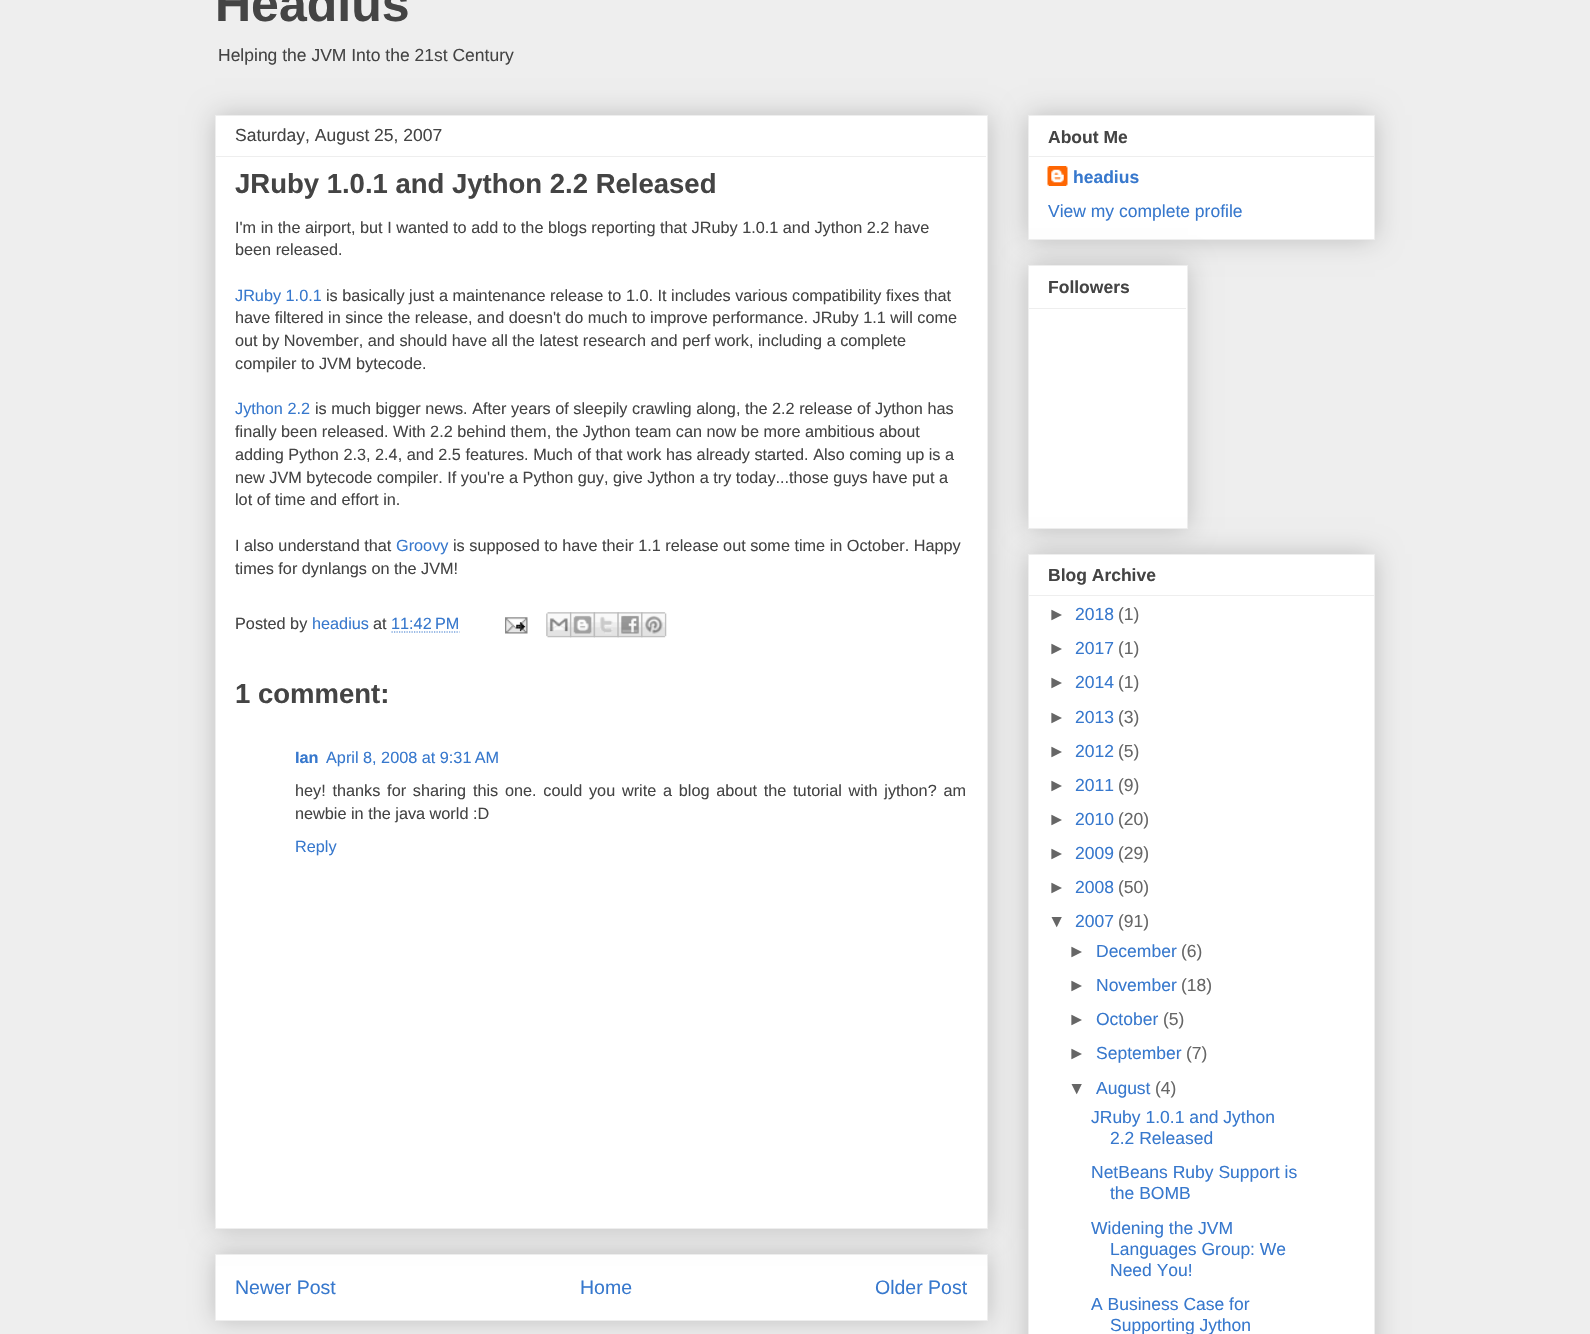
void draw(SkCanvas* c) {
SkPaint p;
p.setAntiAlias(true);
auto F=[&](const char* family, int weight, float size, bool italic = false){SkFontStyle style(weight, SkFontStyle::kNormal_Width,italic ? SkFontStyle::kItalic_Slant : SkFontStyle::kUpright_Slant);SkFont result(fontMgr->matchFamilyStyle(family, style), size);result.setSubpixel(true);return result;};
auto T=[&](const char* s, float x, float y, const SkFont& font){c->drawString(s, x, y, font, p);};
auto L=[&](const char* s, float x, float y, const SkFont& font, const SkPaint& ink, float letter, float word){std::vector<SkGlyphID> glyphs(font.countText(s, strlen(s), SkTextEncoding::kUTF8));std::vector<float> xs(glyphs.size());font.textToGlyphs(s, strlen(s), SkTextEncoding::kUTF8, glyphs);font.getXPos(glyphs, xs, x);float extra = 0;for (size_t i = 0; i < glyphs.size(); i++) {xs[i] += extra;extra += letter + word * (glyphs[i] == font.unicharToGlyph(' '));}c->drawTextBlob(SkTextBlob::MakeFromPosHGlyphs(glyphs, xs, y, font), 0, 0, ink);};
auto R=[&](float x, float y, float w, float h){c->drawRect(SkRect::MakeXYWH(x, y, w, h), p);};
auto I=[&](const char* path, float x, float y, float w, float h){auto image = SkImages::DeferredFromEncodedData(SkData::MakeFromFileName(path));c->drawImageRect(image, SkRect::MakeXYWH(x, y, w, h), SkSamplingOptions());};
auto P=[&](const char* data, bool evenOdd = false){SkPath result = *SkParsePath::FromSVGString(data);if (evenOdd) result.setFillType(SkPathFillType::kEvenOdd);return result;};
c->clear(0xffeeeeee);
auto f1 = F("Liberation Sans",700,50);
p.setColor(0xff444444);
T("Headius",215,21,f1);
auto f2 = F("Liberation Sans",400,17.5);
T("Helping the JVM Into the 21st Century",218,61,f2);
p.setColor(0x33000000);
p.setMaskFilter(SkMaskFilter::MakeBlur(kNormal_SkBlurStyle, 12.5));
c->drawRect(SkRect::MakeXYWH(215,1254,773,67),p);
p.setMaskFilter(nullptr);
p.setColor(0xffffffff);
c->drawRect(SkRect::MakeXYWH(215.5,1254.5,772,66),p);
p.setStroke(true);
p.setStrokeWidth(1);
p.setColor(0xffeeeeee);
c->drawRect(SkRect::MakeXYWH(215.5,1254.5,772,66),p);
p.setStroke(false);
p.setColor(0x33000000);
p.setMaskFilter(SkMaskFilter::MakeBlur(kNormal_SkBlurStyle, 12.5));
c->drawRect(SkRect::MakeXYWH(215,115,773,1114),p);
p.setMaskFilter(nullptr);
p.setColor(0xffffffff);
c->drawRect(SkRect::MakeXYWH(215.5,115.5,772,1113),p);
p.setStroke(true);
p.setColor(0xffeeeeee);
c->drawRect(SkRect::MakeXYWH(215.5,115.5,772,1113),p);
p.setStroke(false);
p.setColor(0xff444444);
T("Saturday, August 25, 2007",235,141,f2);
p.setColor(0xffeeeeee);
R(216,156,770,1);
auto f3 = F("Liberation Sans",700,27.5);
p.setColor(0xff444444);
T("JRuby 1.0.1 and Jython 2.2 Released",235,193,f3);
auto f4 = F("Liberation Sans",400,16.25);
T("I'm in the airport, but I wanted to add to the blogs reporting that JRuby 1.0.1 and Jython 2.2 have",235,233,f4);
T("been released.",235,255,f4);
p.setColor(0xff3778cd);
T("JRuby 1.0.1",235,301,f4);
p.setColor(0xff444444);
T("is basically just a maintenance release to 1.0. It includes various compatibility fixes that",326,301,f4);
T("have filtered in since the release, and doesn't do much to improve performance. JRuby 1.1 will come",235,323,f4);
T("out by November, and should have all the latest research and perf work, including a complete",235,346,f4);
T("compiler to JVM bytecode.",235,369,f4);
p.setColor(0xff3778cd);
T("Jython 2.2",235,414,f4);
p.setColor(0xff444444);
T("is much bigger news. After years of sleepily crawling along, the 2.2 release of Jython has",315,414,f4);
T("finally been released. With 2.2 behind them, the Jython team can now be more ambitious about",235,437,f4);
T("adding Python 2.3, 2.4, and 2.5 features. Much of that work has already started. Also coming up is a",235,460,f4);
T("new JVM bytecode compiler. If you're a Python guy, give Jython a try today...those guys have put a",235,483,f4);
T("lot of time and effort in.",235,505,f4);
T("I also understand that",235,551,f4);
p.setColor(0xff3778cd);
T("Groovy",396,551,f4);
p.setColor(0xff444444);
T("is supposed to have their 1.1 release out some time in October. Happy",453,551,f4);
T("times for dynlangs on the JVM!",235,574,f4);
T("Posted by",235,629,f4);
p.setColor(0xff3778cd);
T("headius",312,629,f4);
p.setColor(0xff444444);
T("at",373,629,f4);
p.setColor(0xff3778cd);
T("11:42 PM",391,629,f4);
p.setStroke(true);
p.setStrokeWidth(1.2);
p.setPathEffect(SkDashPathEffect::Make({{1.25f,1.25f}}, 0));
c->drawPath(P("M391.5 632h68"),p);
p.setPathEffect(nullptr);
I("1.png",505,617,23,17);
I("2.png",546,612,26,26);
I("3.png",570,612,25,26);
I("4.png",593,612,26,26);
I("5.png",617,612,26,26);
I("6.png",641,612,26,26);
p.setStroke(false);
p.setColor(0xff444444);
T("1 comment:",235,703,f3);
auto f5 = F("Liberation Sans",700,16.25);
p.setColor(0xff3778cd);
T("Ian",295,763,f5);
T("April 8, 2008 at 9:31 AM",326,763,f4);
p.setColor(0xff444444);
L("hey! thanks for sharing this one. could you write a blog about the tutorial with jython? am",295,796,f4,p,0,2.25);
T("newbie in the java world :D",295,819,f4);
p.setColor(0xff3778cd);
T("Reply",295,852,f4);
auto f6 = F("Liberation Sans",400,19.5);
T("Newer Post",235,1294,f6);
T("Home",580,1294,f6);
T("Older Post",875,1294,f6);
p.setColor(0x33000000);
p.setMaskFilter(SkMaskFilter::MakeBlur(kNormal_SkBlurStyle, 12.5));
c->drawRect(SkRect::MakeXYWH(1028,115,347,125),p);
p.setMaskFilter(nullptr);
p.setColor(0xffffffff);
c->drawRect(SkRect::MakeXYWH(1028.5,115.5,346,124),p);
p.setStroke(true);
p.setStrokeWidth(1);
p.setColor(0xffeeeeee);
c->drawRect(SkRect::MakeXYWH(1028.5,115.5,346,124),p);
auto f7 = F("Liberation Sans",700,17.5);
p.setStroke(false);
p.setColor(0xff444444);
T("About Me",1048,143,f7);
p.setColor(0xffeeeeee);
R(1029,156,345,1);
I("7.png",1047,166,21,20);
p.setColor(0xff3778cd);
T("headius",1073,183,f7);
T("View my complete profile",1048,217,f2);
p.setColor(0x33000000);
p.setMaskFilter(SkMaskFilter::MakeBlur(kNormal_SkBlurStyle, 12.5));
c->drawRect(SkRect::MakeXYWH(1028,265,160,264),p);
p.setMaskFilter(nullptr);
p.setColor(0xffffffff);
c->drawRect(SkRect::MakeXYWH(1028.5,265.5,159,263),p);
p.setStroke(true);
p.setColor(0xffeeeeee);
c->drawRect(SkRect::MakeXYWH(1028.5,265.5,159,263),p);
p.setStroke(false);
p.setColor(0xff444444);
T("Followers",1048,293,f7);
p.setColor(0xffeeeeee);
R(1029,308,157,1);
p.setColor(0x33000000);
p.setMaskFilter(SkMaskFilter::MakeBlur(kNormal_SkBlurStyle, 12.5));
c->drawRect(SkRect::MakeXYWH(1028,554,347,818),p);
p.setMaskFilter(nullptr);
p.setColor(0xffffffff);
c->drawRect(SkRect::MakeXYWH(1028.5,554.5,346,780),p);
p.setStroke(true);
p.setColor(0xffeeeeee);
c->drawRect(SkRect::MakeXYWH(1028.5,554.5,346,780),p);
p.setStroke(false);
p.setColor(0xff444444);
T("Blog Archive",1048,581,f7);
p.setColor(0xffeeeeee);
R(1029,595,345,1);
p.setColor(0xff666666);
T("►",1048,620,f2);
p.setColor(0xff3778cd);
T("2018",1075,620,f2);
p.setColor(0xff666666);
T("(1)",1118,620,f2);
T("►",1048,654,f2);
p.setColor(0xff3778cd);
T("2017",1075,654,f2);
p.setColor(0xff666666);
T("(1)",1118,654,f2);
T("►",1048,688,f2);
p.setColor(0xff3778cd);
T("2014",1075,688,f2);
p.setColor(0xff666666);
T("(1)",1118,688,f2);
T("►",1048,723,f2);
p.setColor(0xff3778cd);
T("2013",1075,723,f2);
p.setColor(0xff666666);
T("(3)",1118,723,f2);
T("►",1048,757,f2);
p.setColor(0xff3778cd);
T("2012",1075,757,f2);
p.setColor(0xff666666);
T("(5)",1118,757,f2);
T("►",1048,791,f2);
p.setColor(0xff3778cd);
T("2011",1075,791,f2);
p.setColor(0xff666666);
T("(9)",1118,791,f2);
T("►",1048,825,f2);
p.setColor(0xff3778cd);
T("2010",1075,825,f2);
p.setColor(0xff666666);
T("(20)",1118,825,f2);
T("►",1048,859,f2);
p.setColor(0xff3778cd);
T("2009",1075,859,f2);
p.setColor(0xff666666);
T("(29)",1118,859,f2);
T("►",1048,893,f2);
p.setColor(0xff3778cd);
T("2008",1075,893,f2);
p.setColor(0xff666666);
T("(50)",1118,893,f2);
T("▼",1048,927,f2);
p.setColor(0xff3778cd);
T("2007",1075,927,f2);
p.setColor(0xff666666);
T("(91)",1118,927,f2);
T("►",1068,957,f2);
p.setColor(0xff3778cd);
T("December",1096,957,f2);
p.setColor(0xff666666);
T("(6)",1181,957,f2);
T("►",1068,991,f2);
p.setColor(0xff3778cd);
T("November",1096,991,f2);
p.setColor(0xff666666);
T("(18)",1181,991,f2);
T("►",1068,1025,f2);
p.setColor(0xff3778cd);
T("October",1096,1025,f2);
p.setColor(0xff666666);
T("(5)",1163,1025,f2);
T("►",1068,1059,f2);
p.setColor(0xff3778cd);
T("September",1096,1059,f2);
p.setColor(0xff666666);
T("(7)",1186,1059,f2);
T("▼",1068,1094,f2);
p.setColor(0xff3778cd);
T("August",1096,1094,f2);
p.setColor(0xff666666);
T("(4)",1155,1094,f2);
p.setColor(0xff3778cd);
T("JRuby 1.0.1 and Jython",1091,1123,f2);
T("2.2 Released",1110,1144,f2);
T("NetBeans Ruby Support is",1091,1178,f2);
T("the BOMB",1110,1199,f2);
T("Widening the JVM",1091,1234,f2);
T("Languages Group: We",1110,1255,f2);
T("Need You!",1110,1276,f2);
T("A Business Case for",1091,1310,f2);
T("Supporting Jython",1110,1331,f2);
}
